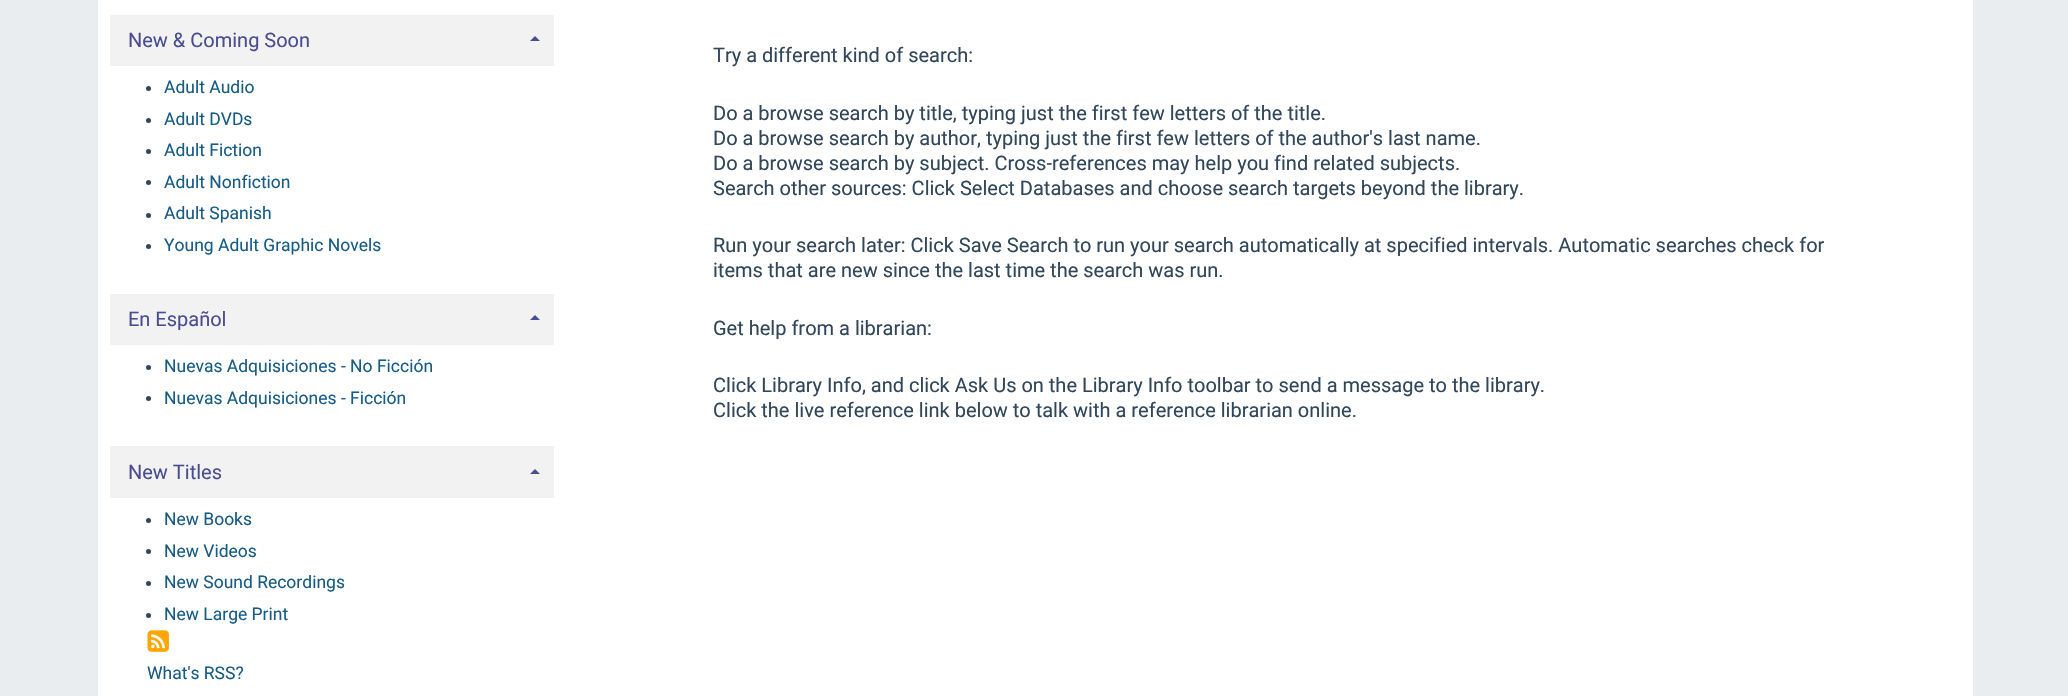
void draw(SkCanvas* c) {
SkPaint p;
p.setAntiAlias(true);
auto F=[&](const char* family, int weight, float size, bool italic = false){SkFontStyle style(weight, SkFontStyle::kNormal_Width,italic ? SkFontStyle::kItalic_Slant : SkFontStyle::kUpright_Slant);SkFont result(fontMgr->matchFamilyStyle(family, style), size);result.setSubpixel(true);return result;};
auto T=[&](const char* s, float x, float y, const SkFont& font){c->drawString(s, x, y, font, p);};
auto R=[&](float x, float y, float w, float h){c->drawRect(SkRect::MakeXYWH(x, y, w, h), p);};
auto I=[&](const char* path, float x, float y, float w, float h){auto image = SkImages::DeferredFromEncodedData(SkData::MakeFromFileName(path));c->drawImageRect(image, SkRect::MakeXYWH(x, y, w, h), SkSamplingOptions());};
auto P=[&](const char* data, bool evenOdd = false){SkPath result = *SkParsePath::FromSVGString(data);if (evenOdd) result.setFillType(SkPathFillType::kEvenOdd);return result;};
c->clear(0xffeaedf0);
p.setColor(0xffffffff);
R(98,0,1875,696);
p.setColor(0xfff2f2f2);
R(110,15,444,51);
auto f1 = F("Roboto",400,20);
p.setColor(0xff4a4d91);
T("New & Coming Soon",128,47,f1);
c->drawPath(P("M540 41h-10l5-5z"),p);
p.setColor(0xff30465b);
c->drawCircle(148.5,88.5,2.5,p);
auto f2 = F("Roboto",400,17.5);
p.setColor(0xff165c89);
T("Adult Audio",164,93,f2);
p.setColor(0xff30465b);
c->drawCircle(148.5,120.5,2.5,p);
p.setColor(0xff165c89);
T("Adult DVDs",164,125,f2);
p.setColor(0xff30465b);
c->drawCircle(148.5,151.5,2.5,p);
p.setColor(0xff165c89);
T("Adult Fiction",164,156,f2);
p.setColor(0xff30465b);
c->drawCircle(148.5,182.5,2.5,p);
p.setColor(0xff165c89);
T("Adult Nonfiction",164,188,f2);
p.setColor(0xff30465b);
c->drawCircle(148.5,215.5,2.5,p);
p.setColor(0xff165c89);
T("Adult Spanish",164,219,f2);
p.setColor(0xff30465b);
c->drawCircle(148.5,246.5,2.5,p);
p.setColor(0xff165c89);
T("Young Adult Graphic Novels",164,251,f2);
p.setColor(0xfff2f2f2);
R(110,294,444,51);
p.setColor(0xff4a4d91);
T("En Español",128,326,f1);
c->drawPath(P("M540 320h-10l5-5z"),p);
p.setColor(0xff30465b);
c->drawCircle(148.5,367.5,2.5,p);
p.setColor(0xff165c89);
T("Nuevas Adquisiciones - No Ficción",164,372,f2);
p.setColor(0xff30465b);
c->drawCircle(148.5,398.5,2.5,p);
p.setColor(0xff165c89);
T("Nuevas Adquisiciones - Ficción",164,404,f2);
p.setColor(0xfff2f2f2);
R(110,446,444,52);
p.setColor(0xff4a4d91);
T("New Titles",128,479,f1);
c->drawPath(P("M540 474h-10l5-5z"),p);
p.setColor(0xff30465b);
c->drawCircle(148.5,520.5,2.5,p);
p.setColor(0xff165c89);
T("New Books",164,525,f2);
p.setColor(0xff30465b);
c->drawCircle(148.5,551.5,2.5,p);
p.setColor(0xff165c89);
T("New Videos",164,557,f2);
p.setColor(0xff30465b);
c->drawCircle(148.5,583.5,2.5,p);
p.setColor(0xff165c89);
T("New Sound Recordings",164,588,f2);
p.setColor(0xff30465b);
c->drawCircle(148.5,615.5,2.5,p);
p.setColor(0xff165c89);
T("New Large Print",164,620,f2);
I("1.png",147,630,22,22);
T("What's RSS?",147,679,f2);
p.setColor(0xff30465b);
T("Try a different kind of search:",713,62,f1);
T("Do a browse search by title, typing just the first few letters of the title.",713,120,f1);
T("Do a browse search by author, typing just the first few letters of the author's last name.",713,145,f1);
T("Do a browse search by subject. Cross-references may help you find related subjects.",713,170,f1);
T("Search other sources: Click Select Databases and choose search targets beyond the library.",713,195,f1);
T("Run your search later: Click Save Search to run your search automatically at specified intervals. Automatic searches check for",713,252,f1);
T("items that are new since the last time the search was run.",713,277,f1);
T("Get help from a librarian:",713,335,f1);
T("Click Library Info, and click Ask Us on the Library Info toolbar to send a message to the library.",713,392,f1);
T("Click the live reference link below to talk with a reference librarian online.",713,417,f1);
}
